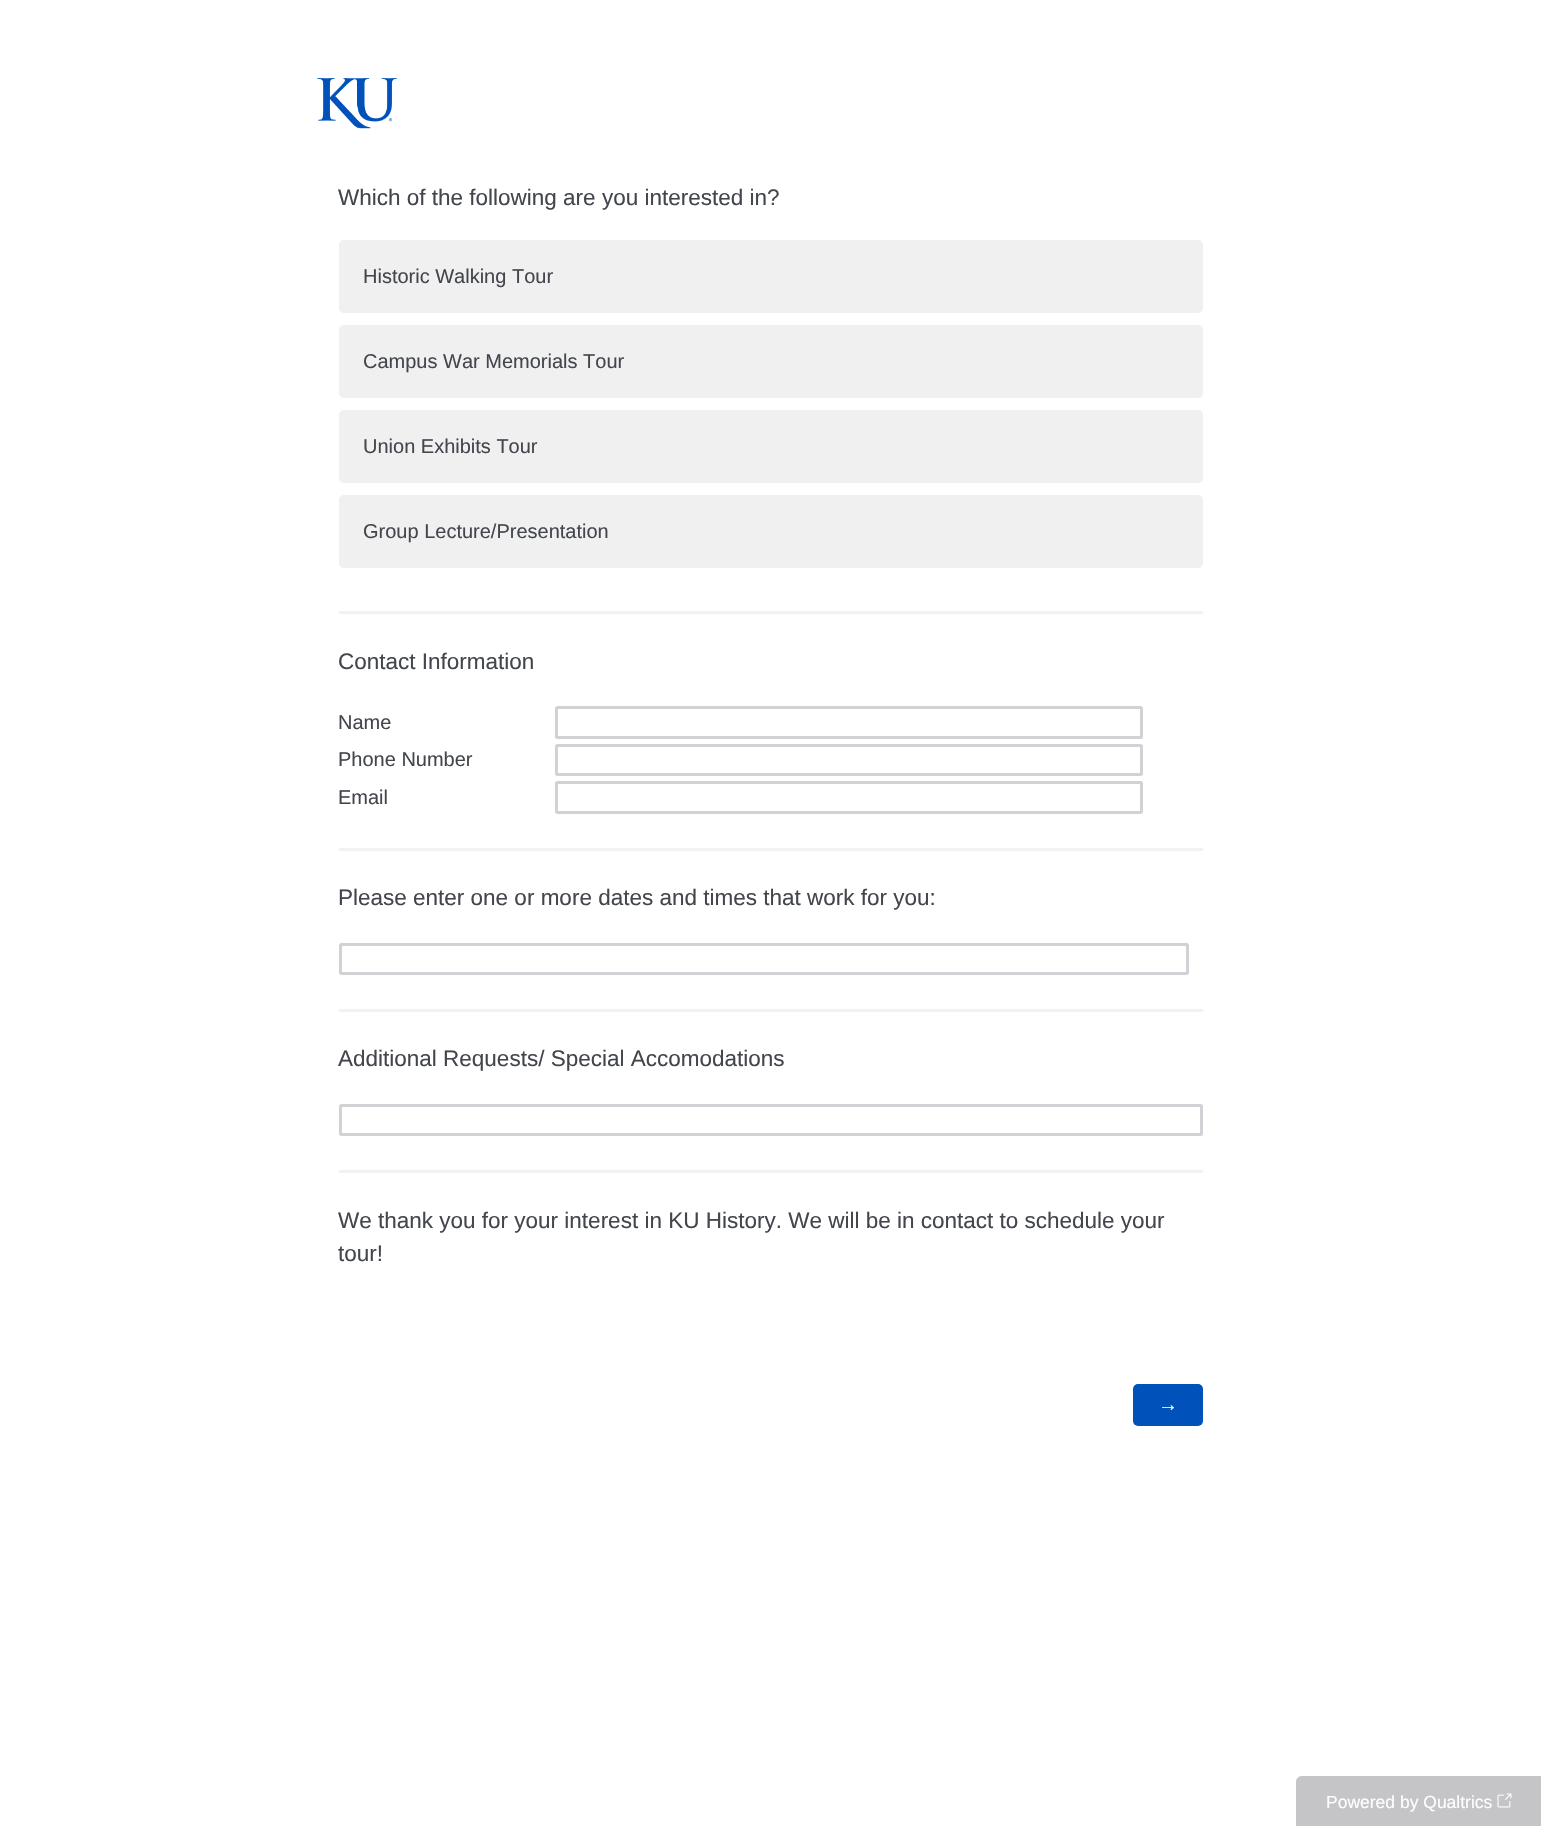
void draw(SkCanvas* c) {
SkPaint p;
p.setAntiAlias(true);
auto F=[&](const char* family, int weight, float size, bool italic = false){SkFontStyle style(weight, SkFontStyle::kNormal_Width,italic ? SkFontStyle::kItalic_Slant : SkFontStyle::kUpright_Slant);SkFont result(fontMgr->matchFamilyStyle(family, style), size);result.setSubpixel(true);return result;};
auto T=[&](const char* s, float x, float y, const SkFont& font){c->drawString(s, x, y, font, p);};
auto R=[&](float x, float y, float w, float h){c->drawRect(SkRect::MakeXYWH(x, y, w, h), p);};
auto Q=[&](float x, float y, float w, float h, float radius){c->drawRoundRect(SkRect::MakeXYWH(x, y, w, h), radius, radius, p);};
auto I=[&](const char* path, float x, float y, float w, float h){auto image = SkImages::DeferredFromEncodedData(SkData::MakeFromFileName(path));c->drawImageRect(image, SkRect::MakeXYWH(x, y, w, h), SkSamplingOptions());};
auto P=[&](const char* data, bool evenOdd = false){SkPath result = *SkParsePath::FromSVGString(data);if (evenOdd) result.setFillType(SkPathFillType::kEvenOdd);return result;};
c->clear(0xffffffff);
I("1.png",317,78,80,51);
auto f1 = F("Liberation Sans",400,22.5);
p.setColor(0xff43464d);
T("Which of the following are you interested in?",338,205,f1);
p.setColor(0xfff0f0f0);
Q(339,240,864,73,5);
auto f2 = F("Liberation Sans",400,20);
p.setColor(0xff43464d);
T("Historic Walking Tour",363,283,f2);
p.setColor(0xfff0f0f0);
Q(339,325,864,73,5);
p.setColor(0xff43464d);
T("Campus War Memorials Tour",363,368,f2);
p.setColor(0xfff0f0f0);
Q(339,410,864,73,5);
p.setColor(0xff43464d);
T("Union Exhibits Tour",363,453,f2);
p.setColor(0xfff0f0f0);
Q(339,495,864,73,5);
p.setColor(0xff43464d);
T("Group Lecture/Presentation",363,538,f2);
p.setColor(0xfff2f2f3);
R(339,611,864,3);
p.setColor(0xff43464d);
T("Contact Information",338,669,f1);
T("Name",338,729,f2);
p.setStroke(true);
p.setStrokeWidth(3);
p.setColor(0xffd2d2d6);
c->drawRoundRect(SkRect::MakeXYWH(556.5,707.5,585,30),1,1,p);
p.setStroke(false);
p.setColor(0xff43464d);
T("Phone Number",338,766,f2);
p.setStroke(true);
p.setColor(0xffd2d2d6);
c->drawRoundRect(SkRect::MakeXYWH(556.5,745.5,585,29),1,1,p);
p.setStroke(false);
p.setColor(0xff43464d);
T("Email",338,804,f2);
p.setStroke(true);
p.setColor(0xffd2d2d6);
c->drawRoundRect(SkRect::MakeXYWH(556.5,782.5,585,30),1,1,p);
p.setStroke(false);
p.setColor(0xfff2f2f3);
R(339,848,864,3);
p.setColor(0xff43464d);
T("Please enter one or more dates and times that work for you:",338,905,f1);
p.setStroke(true);
p.setColor(0xffd2d2d6);
c->drawRoundRect(SkRect::MakeXYWH(340.5,944.5,847,29),1,1,p);
p.setStroke(false);
p.setColor(0xfff2f2f3);
R(339,1009,864,3);
p.setColor(0xff43464d);
T("Additional Requests/ Special Accomodations",338,1066,f1);
p.setStroke(true);
p.setColor(0xffd2d2d6);
c->drawRoundRect(SkRect::MakeXYWH(340.5,1105.5,861,29),1,1,p);
p.setStroke(false);
p.setColor(0xfff2f2f3);
R(339,1170,864,3);
p.setColor(0xff43464d);
T("We thank you for your interest in KU History. We will be in contact to schedule your",338,1228,f1);
T("tour!",338,1261,f1);
p.setColor(0xff0051ba);
Q(1133,1384,70,42,5);
p.setColor(0xffffffff);
T("→",1158,1411,f2);
p.setColor(0xffc5c5c7);
c->drawPath(P("M1302 1776h239v50h-245v-44c0-3.5 2.5-6 6-6z"),p);
auto f3 = F("Liberation Sans",400,17.5);
p.setColor(0xffffffff);
T("Powered by Qualtrics",1326,1808,f3);
I("2.png",1497,1793,15,15);
}
